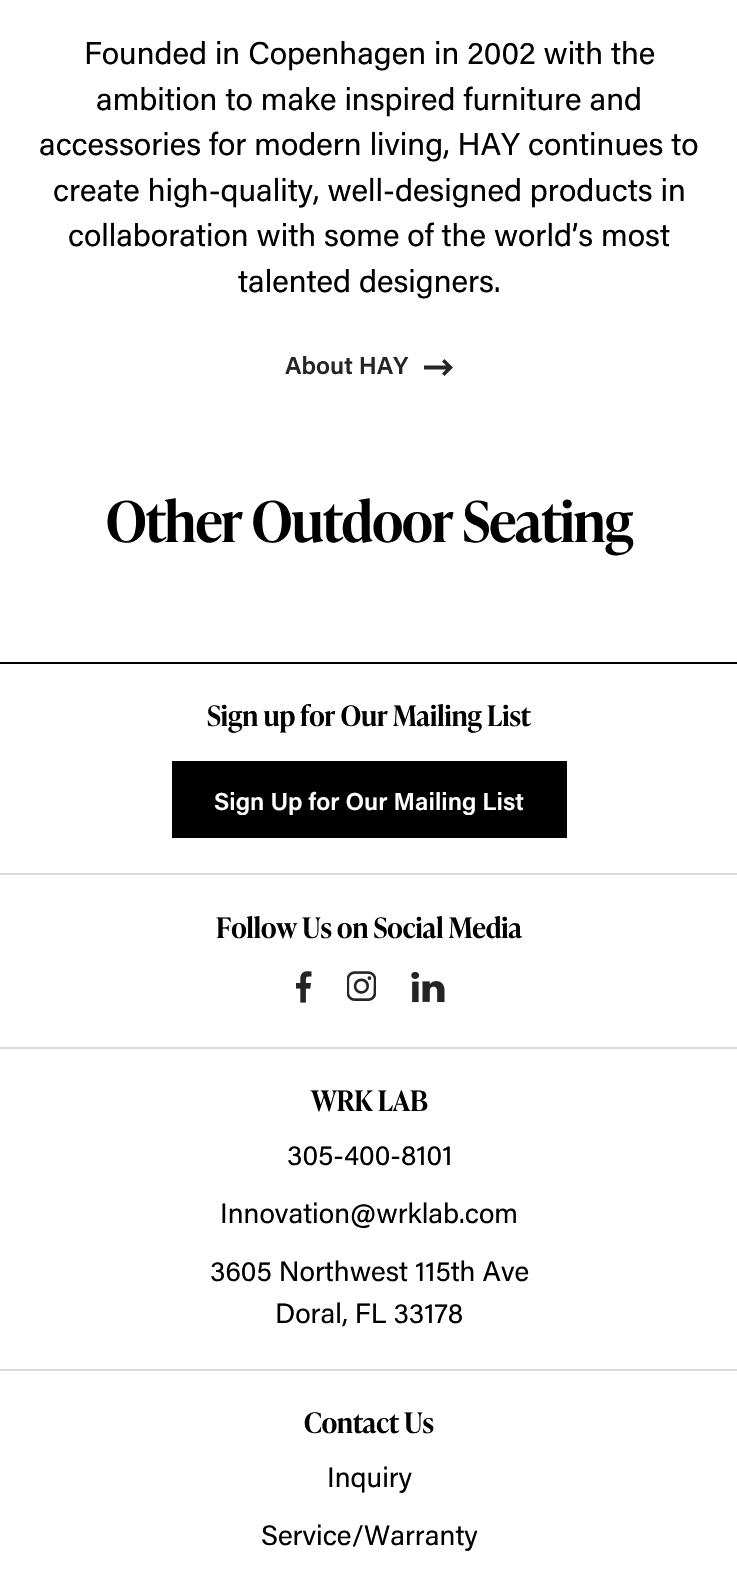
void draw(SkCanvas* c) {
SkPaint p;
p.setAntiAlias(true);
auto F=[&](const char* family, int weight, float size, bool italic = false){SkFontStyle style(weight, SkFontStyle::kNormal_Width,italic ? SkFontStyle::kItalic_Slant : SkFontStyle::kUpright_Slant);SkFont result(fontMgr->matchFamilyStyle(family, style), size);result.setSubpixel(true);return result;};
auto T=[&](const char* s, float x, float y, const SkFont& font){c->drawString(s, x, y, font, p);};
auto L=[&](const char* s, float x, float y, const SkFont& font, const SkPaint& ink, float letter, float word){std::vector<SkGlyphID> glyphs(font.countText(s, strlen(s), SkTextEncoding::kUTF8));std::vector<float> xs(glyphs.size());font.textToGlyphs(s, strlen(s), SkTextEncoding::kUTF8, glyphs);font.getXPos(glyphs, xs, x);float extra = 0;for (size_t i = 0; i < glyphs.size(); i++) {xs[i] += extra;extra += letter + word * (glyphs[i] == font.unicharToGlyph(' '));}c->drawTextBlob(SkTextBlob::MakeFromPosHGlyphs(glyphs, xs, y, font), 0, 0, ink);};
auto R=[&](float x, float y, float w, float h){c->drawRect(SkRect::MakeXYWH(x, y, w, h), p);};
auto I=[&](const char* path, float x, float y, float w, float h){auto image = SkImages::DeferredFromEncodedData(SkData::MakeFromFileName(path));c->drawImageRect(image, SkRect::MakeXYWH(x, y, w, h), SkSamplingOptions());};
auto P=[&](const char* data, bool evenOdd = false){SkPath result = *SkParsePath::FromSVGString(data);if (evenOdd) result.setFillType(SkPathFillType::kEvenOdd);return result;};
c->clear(0xffffffff);
auto f1 = F("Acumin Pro",400,31.5);
p.setColor(0xff000000);
T("Founded in Copenhagen in 2002 with the",84,64,f1);
T("ambition to make inspired furniture and",96,110,f1);
T("accessories for modern living, HAY continues to",39,155,f1);
T("create high-quality, well-designed products in",53,201,f1);
T("collaboration with some of the world’s most",68,246,f1);
T("talented designers.",238,292,f1);
auto f2 = F("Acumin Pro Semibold",600,24.5);
p.setColor(0xff252525);
T("About HAY",285,374,f2);
c->save();
c->clipRect(SkRect::MakeXYWH(424,359,29,17));
c->drawPath(P("M423.5 365.5h22.5l-4-4l2.5-2.5l8.5 8.5l-8.5 8.5l-2.5-2.5l4-4h-22.5z",true),p);
c->restore();
auto f3 = F("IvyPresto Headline",600,56);
p.setColor(0xff000000);
L("Other Outdoor Seating",106,542,f3,p,-.9,0);
R(0,662,737,2);
auto f4 = F("IvyPresto Headline",600,28);
L("Sign up for Our Mailing List",207,726,f4,p,-.05,0);
R(172,761,395,77);
p.setColor(0xffffffff);
T("Sign Up for Our Mailing List",214,810,f2);
p.setColor(0xffd9d9d9);
R(0,873,737,2);
p.setColor(0xff000000);
L("Follow Us on Social Media",216,938,f4,p,-.05,0);
I("1.png",296,971,16,32);
I("2.png",347,971,29,30);
I("3.png",411,971,34,32);
p.setColor(0xffd9d9d9);
R(0,1047,737,2);
p.setColor(0xff000000);
L("WRK LAB",311,1111,f4,p,-.05,0);
auto f5 = F("Acumin Pro",400,28);
T("305-400-8101",287,1165,f5);
T("Innovation@wrklab.com",220,1223,f5);
T("3605 Northwest 115th Ave",210,1281,f5);
T("Doral, FL 33178",275,1323,f5);
p.setColor(0xffd9d9d9);
R(0,1369,737,2);
p.setColor(0xff000000);
L("Contact Us",304,1433,f4,p,-.05,0);
T("Inquiry",327,1487,f5);
T("Service/Warranty",261,1545,f5);
}
